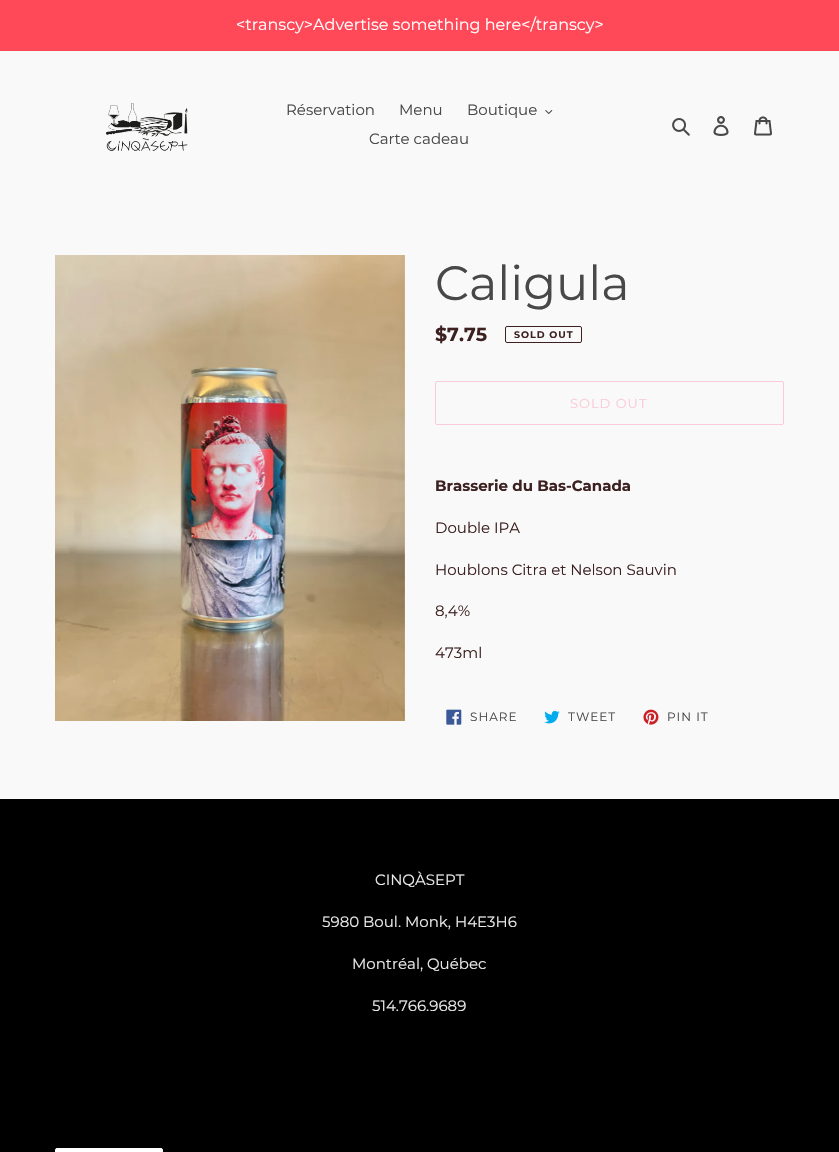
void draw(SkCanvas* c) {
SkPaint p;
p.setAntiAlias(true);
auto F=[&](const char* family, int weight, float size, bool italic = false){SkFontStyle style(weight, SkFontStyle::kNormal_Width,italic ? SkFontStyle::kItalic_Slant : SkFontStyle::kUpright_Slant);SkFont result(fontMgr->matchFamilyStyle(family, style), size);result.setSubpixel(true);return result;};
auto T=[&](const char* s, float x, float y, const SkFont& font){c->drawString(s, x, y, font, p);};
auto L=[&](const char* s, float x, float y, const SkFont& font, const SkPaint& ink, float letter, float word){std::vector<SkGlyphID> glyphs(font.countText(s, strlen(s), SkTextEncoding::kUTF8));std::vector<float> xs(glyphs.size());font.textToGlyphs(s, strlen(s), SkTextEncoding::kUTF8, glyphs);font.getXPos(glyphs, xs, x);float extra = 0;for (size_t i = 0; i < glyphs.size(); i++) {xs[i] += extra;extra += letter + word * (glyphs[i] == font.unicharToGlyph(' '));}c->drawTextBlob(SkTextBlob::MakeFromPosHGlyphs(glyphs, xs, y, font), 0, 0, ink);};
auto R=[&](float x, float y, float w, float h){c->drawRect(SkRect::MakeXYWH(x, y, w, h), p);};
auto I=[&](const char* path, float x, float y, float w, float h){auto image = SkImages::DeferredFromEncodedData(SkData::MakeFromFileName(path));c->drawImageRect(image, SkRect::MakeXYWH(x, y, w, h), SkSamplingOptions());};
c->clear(0xfff9f9f9);
p.setColor(0xffff4858);
R(0,0,839,51);
auto f1 = F("Montserrat",400,16);
p.setColor(0xffffffff);
T("<transcy>Advertise something here</transcy>",236,30,f1);
I("1.png",105,103,83,48);
auto f2 = F("Montserrat",400,15);
p.setColor(0xff494848);
T("Réservation",286,115,f2);
T("Menu",399,115,f2);
T("Boutique",467,115,f2);
I("2.png",545,110,8,4);
T("Carte cadeau",369,144,f2);
I("3.png",672,118,18,18);
I("4.png",713,116,16,20);
I("5.png",754,116,18,20);
I("6.png",55,255,350,466);
auto f3 = F("Montserrat",400,48);
T("Caligula",435,300,f3);
auto f4 = F("Montserrat",700,19);
p.setColor(0xff3d2121);
T("$7.75",435,341,f4);
p.setStroke(true);
p.setStrokeWidth(1);
c->drawRoundRect(SkRect::MakeXYWH(505.5,326.5,76,16),1.5,1.5,p);
auto f5 = F("Montserrat",700,9.5);
p.setStroke(false);
L("SOLD OUT",514,338,f5,p,1,0);
p.setStroke(true);
p.setColor(0xfffbcbd8);
c->drawRoundRect(SkRect::MakeXYWH(435.5,381.5,348,43),1.5,1.5,p);
auto f6 = F("Montserrat",400,13);
p.setStroke(false);
L("SOLD OUT",570,408,f6,p,1,0);
auto f7 = F("Montserrat",700,15);
p.setColor(0xff3d2121);
T("Brasserie du Bas-Canada",435,491,f7);
T("Double IPA",435,533,f2);
T("Houblons Citra et Nelson Sauvin",435,575,f2);
T("8,4%",435,616,f2);
T("473ml",435,658,f2);
I("7.png",446,709,16,16);
auto f8 = F("Montserrat",400,12);
p.setColor(0xff494848);
L("SHARE",470,721,f8,p,1,0);
I("8.png",544,710,16,14);
L("TWEET",568,721,f8,p,1,0);
I("9.png",643,709,16,16);
L("PIN IT",667,721,f8,p,1,0);
p.setColor(0xff000000);
R(0,799,839,353);
p.setColor(0xffebebeb);
T("CINQÀSEPT",375,885,f2);
T("5980 Boul. Monk, H4E3H6",322,927,f2);
T("Montréal, Québec",352,969,f2);
T("514.766.9689",372,1011,f2);
p.setColor(0xffffffff);
c->drawRoundRect(SkRect::MakeXYWH(55.5,1148.5,107,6),1.5,1.5,p);
p.setStroke(true);
c->drawRoundRect(SkRect::MakeXYWH(55.5,1148.5,107,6),1.5,1.5,p);
}
